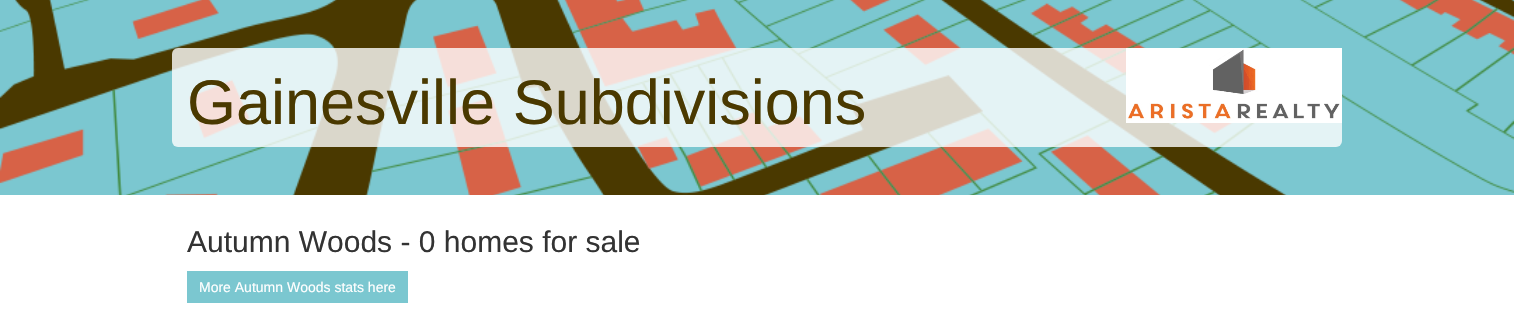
void draw(SkCanvas* c) {
SkPaint p;
p.setAntiAlias(true);
auto F=[&](const char* family, int weight, float size, bool italic = false){SkFontStyle style(weight, SkFontStyle::kNormal_Width,italic ? SkFontStyle::kItalic_Slant : SkFontStyle::kUpright_Slant);SkFont result(fontMgr->matchFamilyStyle(family, style), size);result.setSubpixel(true);return result;};
auto T=[&](const char* s, float x, float y, const SkFont& font){c->drawString(s, x, y, font, p);};
auto R=[&](float x, float y, float w, float h){c->drawRect(SkRect::MakeXYWH(x, y, w, h), p);};
auto Q=[&](float x, float y, float w, float h, float radius){c->drawRoundRect(SkRect::MakeXYWH(x, y, w, h), radius, radius, p);};
auto I=[&](const char* path, float x, float y, float w, float h){auto image = SkImages::DeferredFromEncodedData(SkData::MakeFromFileName(path));c->drawImageRect(image, SkRect::MakeXYWH(x, y, w, h), SkSamplingOptions());};
c->clear(0xffffffff);
I("1.png",0,0,1514,195);
p.setColor(0xccfefefe);
Q(172,48,1170,99,6);
auto f1 = F("Liberation Sans",400,63);
p.setColor(0xff4a3900);
T("Gainesville Subdivisions",187,124,f1);
I("2.png",1126,48,216,75);
auto f2 = F("Liberation Sans",400,30);
p.setColor(0xff333333);
T("Autumn Woods - 0 homes for sale",187,252,f2);
p.setColor(0xff7bc7d0);
R(187,271,221,32);
auto f3 = F("Liberation Sans",400,14);
p.setColor(0xffffffff);
T("More Autumn Woods stats here",199,292,f3);
}
